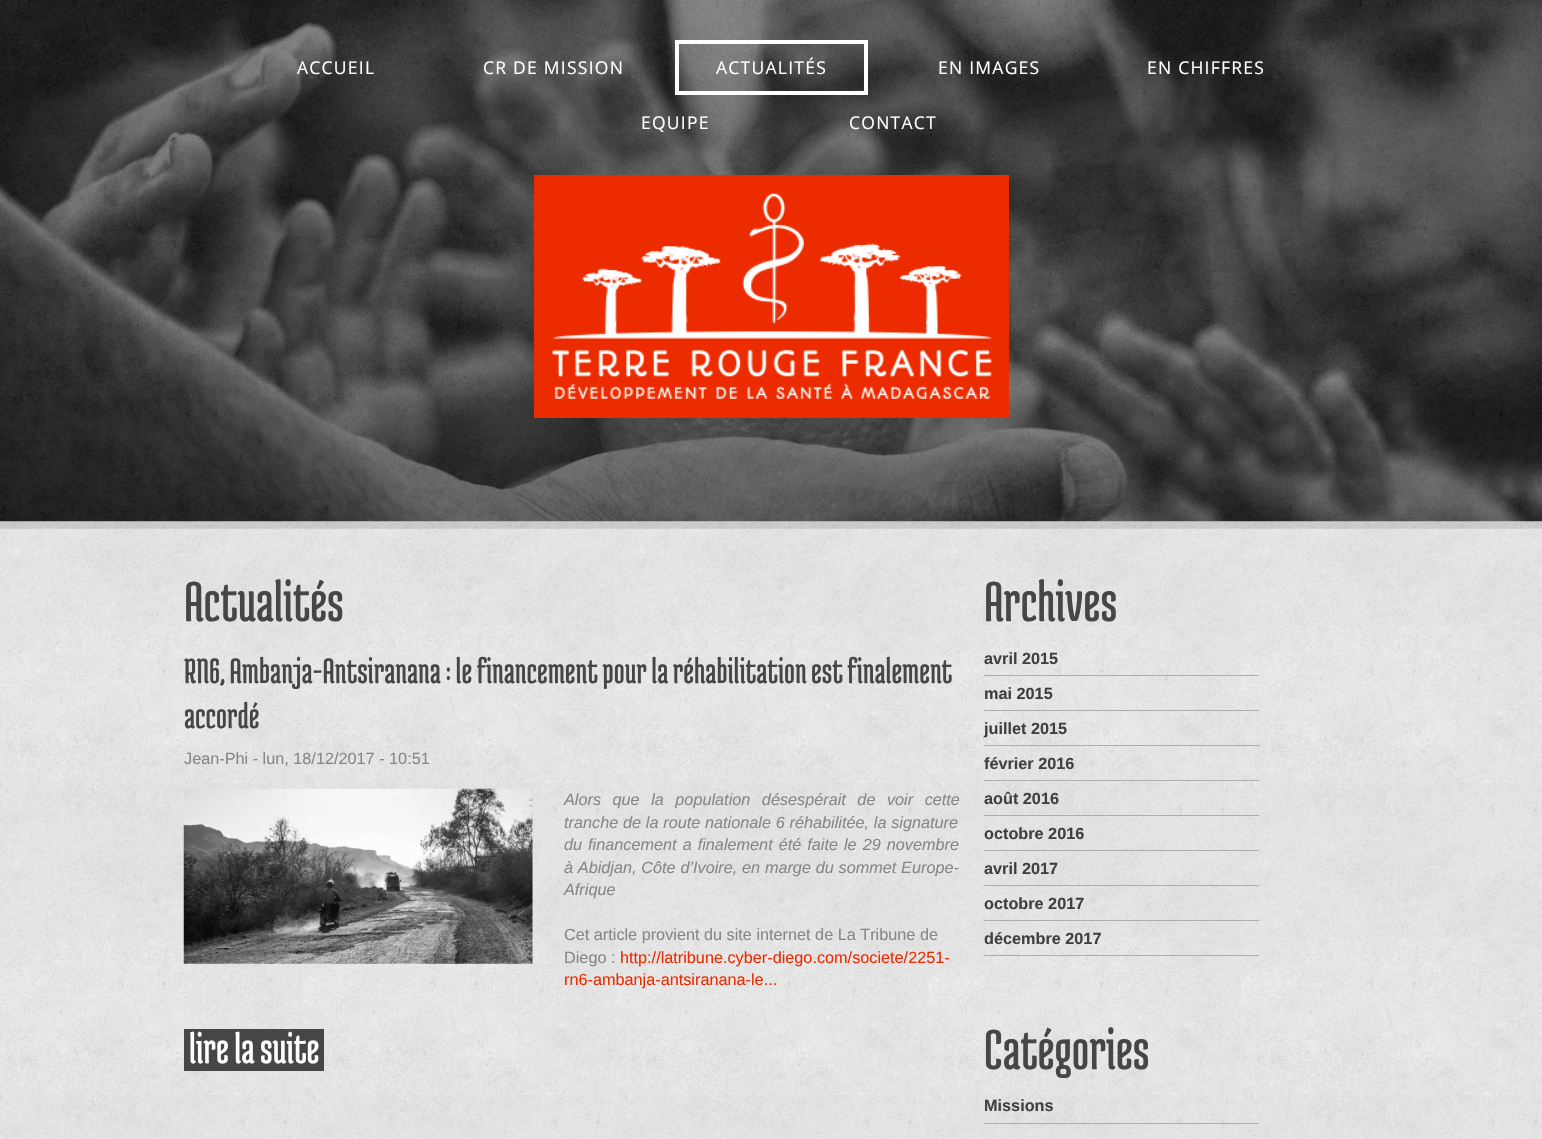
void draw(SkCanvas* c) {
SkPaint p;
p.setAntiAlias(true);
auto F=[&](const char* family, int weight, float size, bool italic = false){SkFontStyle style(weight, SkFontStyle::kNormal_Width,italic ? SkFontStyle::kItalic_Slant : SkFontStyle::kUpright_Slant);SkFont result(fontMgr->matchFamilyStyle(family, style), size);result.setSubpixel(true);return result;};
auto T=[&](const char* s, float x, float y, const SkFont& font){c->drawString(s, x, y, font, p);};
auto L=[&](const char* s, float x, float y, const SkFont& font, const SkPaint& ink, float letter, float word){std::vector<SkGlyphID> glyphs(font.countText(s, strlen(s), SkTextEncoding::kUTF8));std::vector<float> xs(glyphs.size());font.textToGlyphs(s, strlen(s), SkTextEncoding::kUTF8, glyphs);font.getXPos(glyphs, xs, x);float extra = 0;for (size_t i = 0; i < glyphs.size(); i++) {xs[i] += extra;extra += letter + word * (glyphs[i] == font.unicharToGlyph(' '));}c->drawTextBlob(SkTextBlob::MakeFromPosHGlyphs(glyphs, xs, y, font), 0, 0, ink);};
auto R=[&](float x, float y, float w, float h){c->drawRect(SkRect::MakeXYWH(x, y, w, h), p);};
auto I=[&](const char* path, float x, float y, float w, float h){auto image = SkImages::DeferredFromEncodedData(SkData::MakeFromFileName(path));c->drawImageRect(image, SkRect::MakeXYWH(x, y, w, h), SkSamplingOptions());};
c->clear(0xffffffff);
I("1.png",0,521,1542,618);
I("4.png",0,521,1542,8);
I("2.png",0,0,1542,522);
auto f1 = F("Open Sans",400,17.5);
p.setColor(0xffffffff);
L("ACCUEIL",297,74,f1,p,1.25,0);
L("CR DE MISSION",483,74,f1,p,1.25,0);
p.setStroke(true);
p.setStrokeWidth(4);
c->drawRect(SkRect::MakeXYWH(677,42,189,51),p);
p.setStroke(false);
L("ACTUALITÉS",716,74,f1,p,1.25,0);
L("EN IMAGES",938,74,f1,p,1.25,0);
L("EN CHIFFRES",1147,74,f1,p,1.25,0);
L("EQUIPE",641,129,f1,p,1.25,0);
L("CONTACT",849,129,f1,p,1.25,0);
p.setColor(0xffec2c00);
R(534,175,475,243);
I("3.png",552,193,440,206);
auto f2 = F("Medula One",400,60);
p.setColor(0xff464646);
T("Actualités",184,621,f2);
auto f3 = F("Medula One",400,37.5);
T("RN6, Ambanja-Antsiranana : le financement pour la réhabilitation est finalement",184,683,f3);
T("accordé",184,728,f3);
auto f4 = F("Liberation Sans",400,16.25);
p.setColor(0xff878787);
T("Jean-Phi - lun, 18/12/2017 - 10:51",184,764,f4);
I("5.png",183,788,350,176);
auto f5 = F("Liberation Sans",400,16.25,true);
L("Alors que la population désespérait de voir cette",564,805,f5,p,0,7);
L("tranche de la route nationale 6 réhabilitée, la signature",564,828,f5,p,0,.25);
L("du financement a finalement été faite le 29 novembre",564,850,f5,p,0,1.5);
L("à Abidjan, Côte d’Ivoire, en marge du sommet Europe-",564,873,f5,p,0,.25);
T("Afrique",564,895,f5);
T("Cet article provient du site internet de La Tribune de",564,940,f4);
T("Diego :",564,963,f4);
p.setColor(0xffec2c00);
T("http://latribune.cyber-diego.com/societe/2251-",620,963,f4);
T("rn6-ambanja-antsiranana-le...",564,985,f4);
p.setColor(0xff464646);
R(184,1029,140,42);
auto f6 = F("Medula One",400,45);
p.setColor(0xffffffff);
T("lire la suite",189,1063,f6);
p.setColor(0xff464646);
T("Archives",984,621,f2);
p.setColor(0xffadadad);
R(984,675,275,1);
auto f7 = F("Liberation Sans",700,16.25);
p.setColor(0xff404040);
T("avril 2015",984,664,f7);
p.setColor(0xffadadad);
R(984,710,275,1);
p.setColor(0xff404040);
T("mai 2015",984,699,f7);
p.setColor(0xffadadad);
R(984,745,275,1);
p.setColor(0xff404040);
T("juillet 2015",984,734,f7);
p.setColor(0xffadadad);
R(984,780,275,1);
p.setColor(0xff404040);
T("février 2016",984,769,f7);
p.setColor(0xffadadad);
R(984,815,275,1);
p.setColor(0xff404040);
T("août 2016",984,804,f7);
p.setColor(0xffadadad);
R(984,850,275,1);
p.setColor(0xff404040);
T("octobre 2016",984,839,f7);
p.setColor(0xffadadad);
R(984,885,275,1);
p.setColor(0xff404040);
T("avril 2017",984,874,f7);
p.setColor(0xffadadad);
R(984,920,275,1);
p.setColor(0xff404040);
T("octobre 2017",984,909,f7);
p.setColor(0xffadadad);
R(984,955,275,1);
p.setColor(0xff404040);
T("décembre 2017",984,944,f7);
p.setColor(0xff464646);
T("Catégories",984,1069,f2);
p.setColor(0xffadadad);
R(984,1123,275,1);
p.setColor(0xff404040);
T("Missions",984,1111,f7);
}
